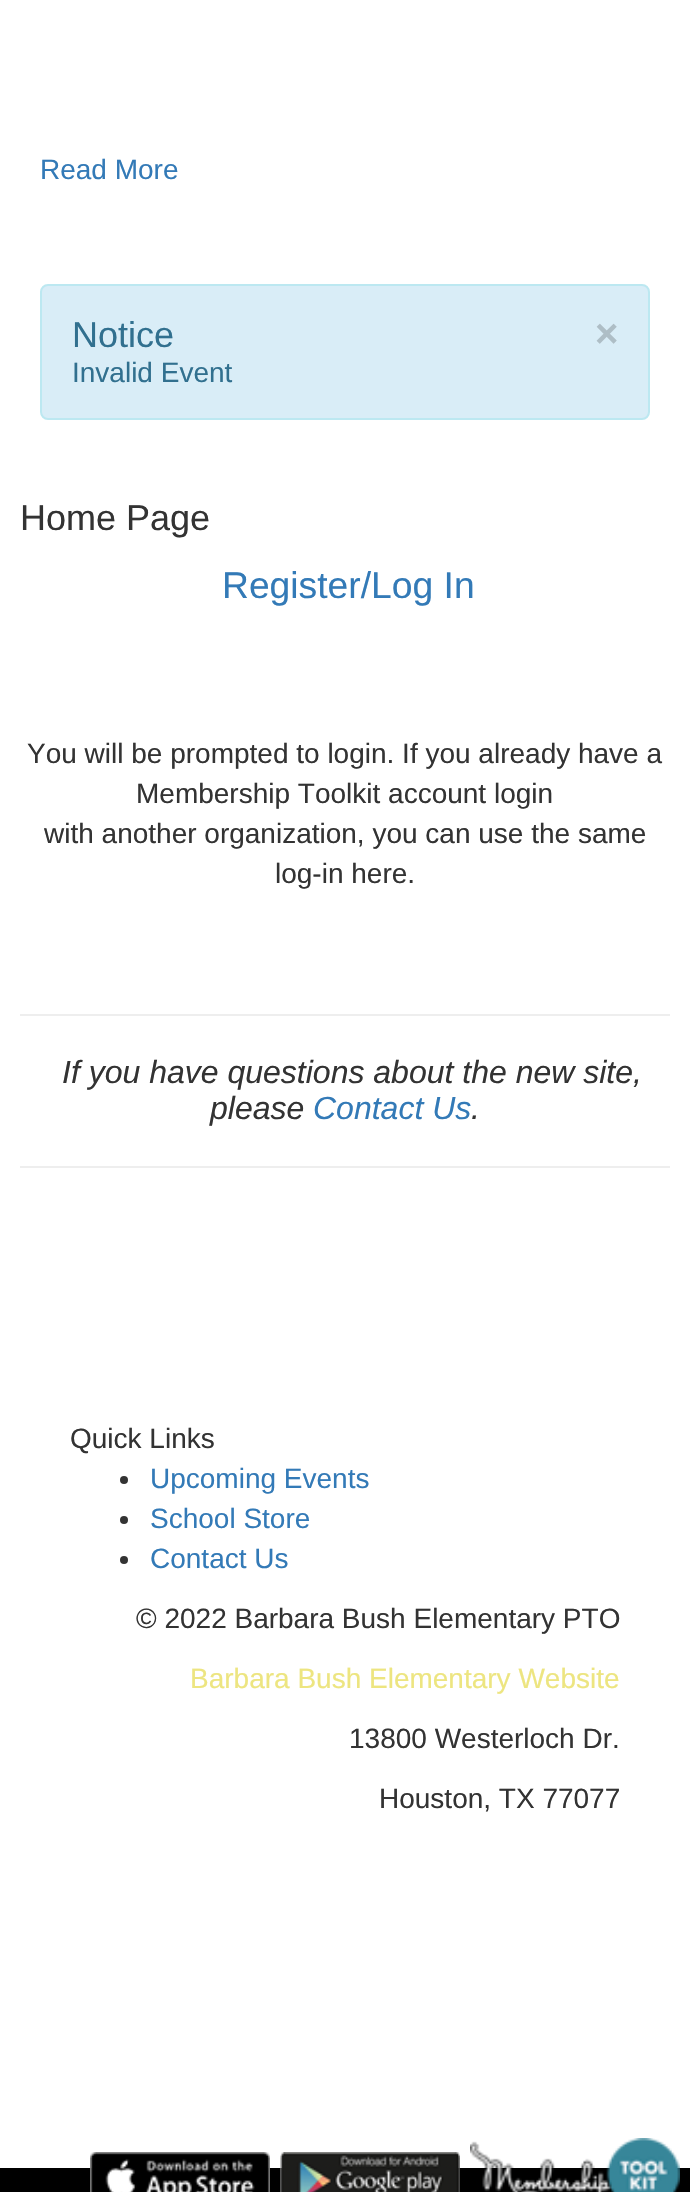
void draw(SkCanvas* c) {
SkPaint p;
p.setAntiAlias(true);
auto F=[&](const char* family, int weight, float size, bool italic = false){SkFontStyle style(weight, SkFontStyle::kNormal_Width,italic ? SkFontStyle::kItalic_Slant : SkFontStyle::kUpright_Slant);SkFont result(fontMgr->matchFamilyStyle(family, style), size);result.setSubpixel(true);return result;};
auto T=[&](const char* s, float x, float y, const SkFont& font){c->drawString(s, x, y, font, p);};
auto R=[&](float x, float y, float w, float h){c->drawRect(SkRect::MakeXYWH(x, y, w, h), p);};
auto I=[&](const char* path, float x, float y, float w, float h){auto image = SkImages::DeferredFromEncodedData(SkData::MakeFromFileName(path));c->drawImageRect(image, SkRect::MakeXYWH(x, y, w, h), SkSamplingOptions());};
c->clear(0xffffffff);
auto f1 = F("Liberation Sans",400,28);
p.setColor(0xff337ab7);
T("Read More",40,179,f1);
p.setColor(0xffd9edf7);
c->drawRoundRect(SkRect::MakeXYWH(41,285,608,134),7,7,p);
p.setStroke(true);
p.setStrokeWidth(2);
p.setColor(0xffbce8f1);
c->drawRoundRect(SkRect::MakeXYWH(41,285,608,134),7,7,p);
auto f2 = F("Liberation Sans",400,36);
p.setStroke(false);
p.setColor(0xff31708f);
T("Notice",72,347,f2);
auto f3 = F("Liberation Sans",700,40);
p.setColor(0xffaebec6);
T("×",595,347,f3);
p.setColor(0xff31708f);
T("Invalid Event",72,382,f1);
p.setColor(0xff333333);
T("Home Page",20,530,f2);
auto f4 = F("Liberation Sans",400,37.25);
p.setColor(0xff337ab7);
T("Register/Log In",222,598,f4);
p.setColor(0xff333333);
T("You will be prompted to login. If you already have a",27,763,f1);
T("Membership Toolkit account login",136,803,f1);
T("with another organization, you can use the same",44,843,f1);
T("log-in here.",275,883,f1);
p.setColor(0xffeeeeee);
R(20,1014,650,2);
auto f5 = F("Liberation Sans",400,32,true);
p.setColor(0xff333333);
T("If you have questions about the new site,",62,1083,f5);
T("please",210,1119,f5);
p.setColor(0xff337ab7);
T("Contact Us",313,1119,f5);
p.setColor(0xff333333);
T(".",471,1119,f5);
p.setColor(0xffeeeeee);
R(20,1166,650,2);
p.setColor(0xff333333);
T("Quick Links",70,1448,f1);
c->drawCircle(124,1480,4,p);
p.setColor(0xff337ab7);
T("Upcoming Events",150,1488,f1);
p.setColor(0xff333333);
c->drawCircle(124,1520,4,p);
p.setColor(0xff337ab7);
T("School Store",150,1528,f1);
p.setColor(0xff333333);
c->drawCircle(124,1560,4,p);
p.setColor(0xff337ab7);
T("Contact Us",150,1568,f1);
p.setColor(0xff333333);
T("© 2022 Barbara Bush Elementary PTO",136,1628,f1);
p.setColor(0xffede580);
T("Barbara Bush Elementary Website",190,1688,f1);
p.setColor(0xff333333);
T("13800 Westerloch Dr.",349,1748,f1);
T("Houston, TX 77077",379,1808,f1);
p.setColor(0xff000000);
R(0,2168,690,24);
I("1.png",90,2152,180,40);
I("2.png",280,2152,180,40);
I("3.png",470,2138,210,54);
}
